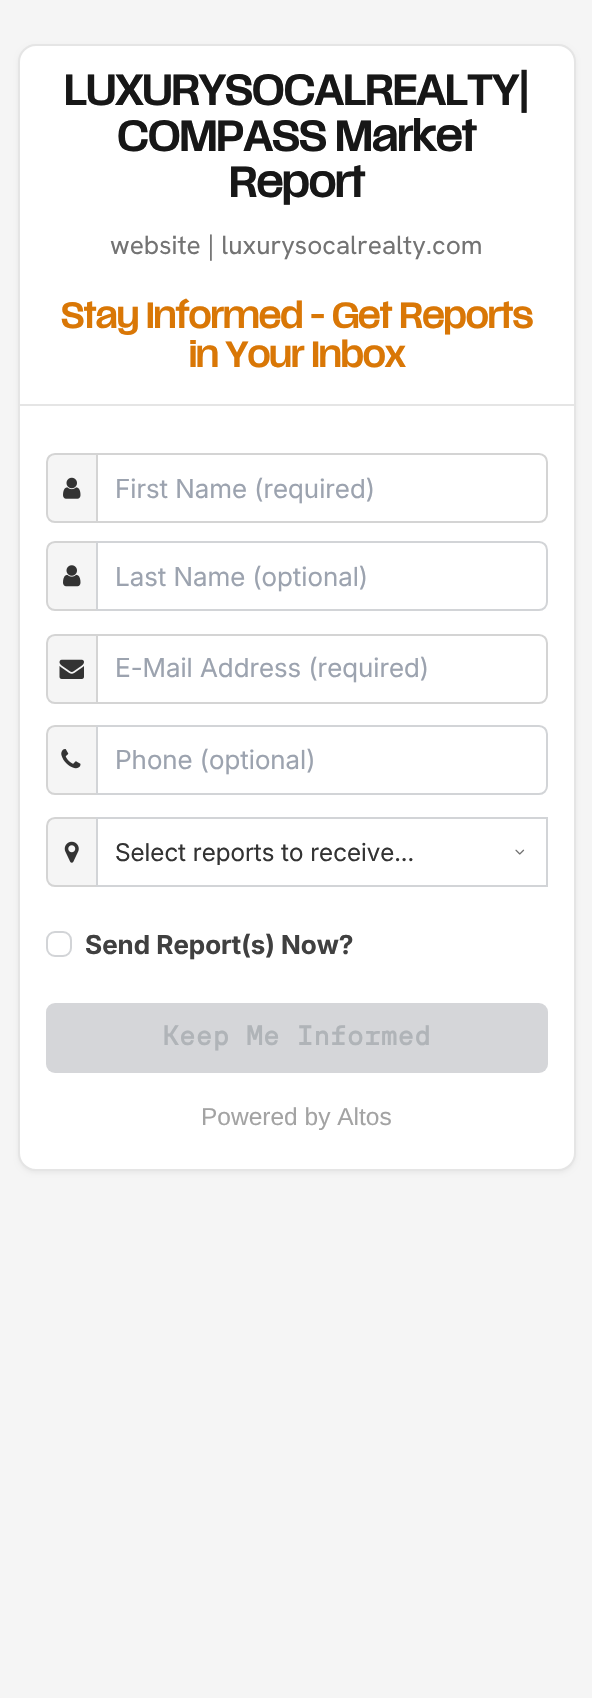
void draw(SkCanvas* c) {
SkPaint p;
p.setAntiAlias(true);
auto F=[&](const char* family, int weight, float size, bool italic = false){SkFontStyle style(weight, SkFontStyle::kNormal_Width,italic ? SkFontStyle::kItalic_Slant : SkFontStyle::kUpright_Slant);SkFont result(fontMgr->matchFamilyStyle(family, style), size);result.setSubpixel(true);return result;};
auto T=[&](const char* s, float x, float y, const SkFont& font){c->drawString(s, x, y, font, p);};
auto R=[&](float x, float y, float w, float h){c->drawRect(SkRect::MakeXYWH(x, y, w, h), p);};
auto Q=[&](float x, float y, float w, float h, float radius){c->drawRoundRect(SkRect::MakeXYWH(x, y, w, h), radius, radius, p);};
auto I=[&](const char* path, float x, float y, float w, float h){auto image = SkImages::DeferredFromEncodedData(SkData::MakeFromFileName(path));c->drawImageRect(image, SkRect::MakeXYWH(x, y, w, h), SkSamplingOptions());};
auto P=[&](const char* data, bool evenOdd = false){SkPath result = *SkParsePath::FromSVGString(data);if (evenOdd) result.setFillType(SkPathFillType::kEvenOdd);return result;};
c->clear(0xfff5f5f5);
p.setColor(0x0d000000);
p.setMaskFilter(SkMaskFilter::MakeBlur(kNormal_SkBlurStyle, 2));
c->drawRoundRect(SkRect::MakeXYWH(18,46,558,1127),18,18,p);
p.setMaskFilter(nullptr);
p.setColor(0xffffffff);
c->drawRoundRect(SkRect::MakeXYWH(19,45,556,1125),17,17,p);
p.setStroke(true);
p.setStrokeWidth(2);
p.setColor(0xffe5e5e5);
c->drawRoundRect(SkRect::MakeXYWH(19,45,556,1125),17,17,p);
auto f1 = F("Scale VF",700,42);
p.setStroke(false);
p.setColor(0xff171717);
T("LUXURYSOCALREALTY|",64,105,f1);
T("COMPASS Market",117,151,f1);
T("Report",229,197,f1);
auto f2 = F("Hanken Grotesk",400,26.25);
p.setColor(0xff737373);
T("website | luxurysocalrealty.com",110,254,f2);
auto f3 = F("Scale VF",700,35);
p.setColor(0xffd97706);
T("Stay Informed - Get Reports",61,328,f3);
T("in Your Inbox",189,367,f3);
p.setColor(0xffe5e5e5);
R(19,404,555,2);
p.setColor(0xfff5f5f5);
c->drawPath(P("M55 454h42v68h-42c-4.5 0-8-3.5-8-8v-52c0-4.5 3.5-8 8-8z"),p);
p.setStroke(true);
p.setColor(0xffd4d4d4);
c->drawPath(P("M55 454h42v68h-42c-4.5 0-8-3.5-8-8v-52c0-4.5 3.5-8 8-8z"),p);
I("1.png",63,477,18,22);
p.setStroke(false);
p.setColor(0xffffffff);
c->drawPath(P("M97 454h442c4.5 0 8 3.5 8 8v52c0 4.5-3.5 8-8 8h-442z"),p);
p.setStroke(true);
p.setColor(0xffd4d4d4);
c->drawPath(P("M97 454h442c4.5 0 8 3.5 8 8v52c0 4.5-3.5 8-8 8h-442z"),p);
auto f4 = F("Inter",400,26.25);
p.setStroke(false);
p.setColor(0xff9ca3af);
T("First Name (required)",115,498,f4);
p.setColor(0xfff5f5f5);
c->drawPath(P("M55 542h42v68h-42c-4.5 0-8-3.5-8-8v-52c0-4.5 3.5-8 8-8z"),p);
p.setStroke(true);
p.setColor(0xffd4d4d4);
c->drawPath(P("M55 542h42v68h-42c-4.5 0-8-3.5-8-8v-52c0-4.5 3.5-8 8-8z"),p);
I("2.png",63,565,18,22);
p.setStroke(false);
p.setColor(0xffffffff);
c->drawPath(P("M97 542h442c4.5 0 8 3.5 8 8v52c0 4.5-3.5 8-8 8h-442z"),p);
p.setStroke(true);
p.setColor(0xffd2d4d7);
c->drawPath(P("M97 542h442c4.5 0 8 3.5 8 8v52c0 4.5-3.5 8-8 8h-442z"),p);
p.setStroke(false);
p.setColor(0xff9ca3af);
T("Last Name (optional)",115,586,f4);
p.setColor(0xfff5f5f5);
c->drawPath(P("M55 635h42v68h-42c-4.5 0-8-3.5-8-8v-52c0-4.5 3.5-8 8-8z"),p);
p.setStroke(true);
p.setColor(0xffd4d4d4);
c->drawPath(P("M55 635h42v68h-42c-4.5 0-8-3.5-8-8v-52c0-4.5 3.5-8 8-8z"),p);
I("3.png",59,659,25,20);
p.setStroke(false);
p.setColor(0xffffffff);
c->drawPath(P("M97 635h442c4.5 0 8 3.5 8 8v52c0 4.5-3.5 8-8 8h-442z"),p);
p.setStroke(true);
p.setColor(0xffd4d4d4);
c->drawPath(P("M97 635h442c4.5 0 8 3.5 8 8v52c0 4.5-3.5 8-8 8h-442z"),p);
p.setStroke(false);
p.setColor(0xff9ca3af);
T("E-Mail Address (required)",115,677,f4);
p.setColor(0xfff5f5f5);
c->drawPath(P("M55 726h42v68h-42c-4.5 0-8-3.5-8-8v-52c0-4.5 3.5-8 8-8z"),p);
p.setStroke(true);
p.setColor(0xffd4d4d4);
c->drawPath(P("M55 726h42v68h-42c-4.5 0-8-3.5-8-8v-52c0-4.5 3.5-8 8-8z"),p);
I("4.png",61,749,20,20);
p.setStroke(false);
p.setColor(0xffffffff);
c->drawPath(P("M97 726h442c4.5 0 8 3.5 8 8v52c0 4.5-3.5 8-8 8h-442z"),p);
p.setStroke(true);
p.setColor(0xffd2d4d7);
c->drawPath(P("M97 726h442c4.5 0 8 3.5 8 8v52c0 4.5-3.5 8-8 8h-442z"),p);
p.setStroke(false);
p.setColor(0xff9ca3af);
T("Phone (optional)",115,769,f4);
p.setColor(0xfff5f5f5);
c->drawPath(P("M55 818h42v68h-42c-4.5 0-8-3.5-8-8v-52c0-4.5 3.5-8 8-8z"),p);
p.setStroke(true);
p.setColor(0xffd4d4d4);
c->drawPath(P("M55 818h42v68h-42c-4.5 0-8-3.5-8-8v-52c0-4.5 3.5-8 8-8z"),p);
I("5.png",64,841,15,22);
p.setColor(0xffd2d4d7);
c->drawRect(SkRect::MakeXYWH(97,818,450,68),p);
c->save();
c->clipRect(SkRect::MakeXYWH(116,838,316,27));
auto f5 = F("Inter",400,24.5);
p.setStroke(false);
p.setColor(0xff333333);
T("Select reports to receive...",115,861,f5);
c->restore();
I("6.png",515,849,10,6);
p.setStroke(true);
p.setColor(0xffd2d4d7);
c->drawRoundRect(SkRect::MakeXYWH(47,932,24,24),8,8,p);
auto f6 = F("Inter",700,26.25);
p.setStroke(false);
p.setColor(0xff404040);
T("Send Report(s) Now?",85,954,f6);
p.setColor(0x332b3440);
Q(46,1003,502,70,9);
auto f7 = F("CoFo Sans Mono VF",700,28);
p.setColor(0xffb0b4b8);
T("Keep Me Informed",162,1045,f7);
auto f8 = F("Liberation Sans",400,24.5);
p.setColor(0xffa3a3a3);
T("Powered by Altos",201,1125,f8);
}
